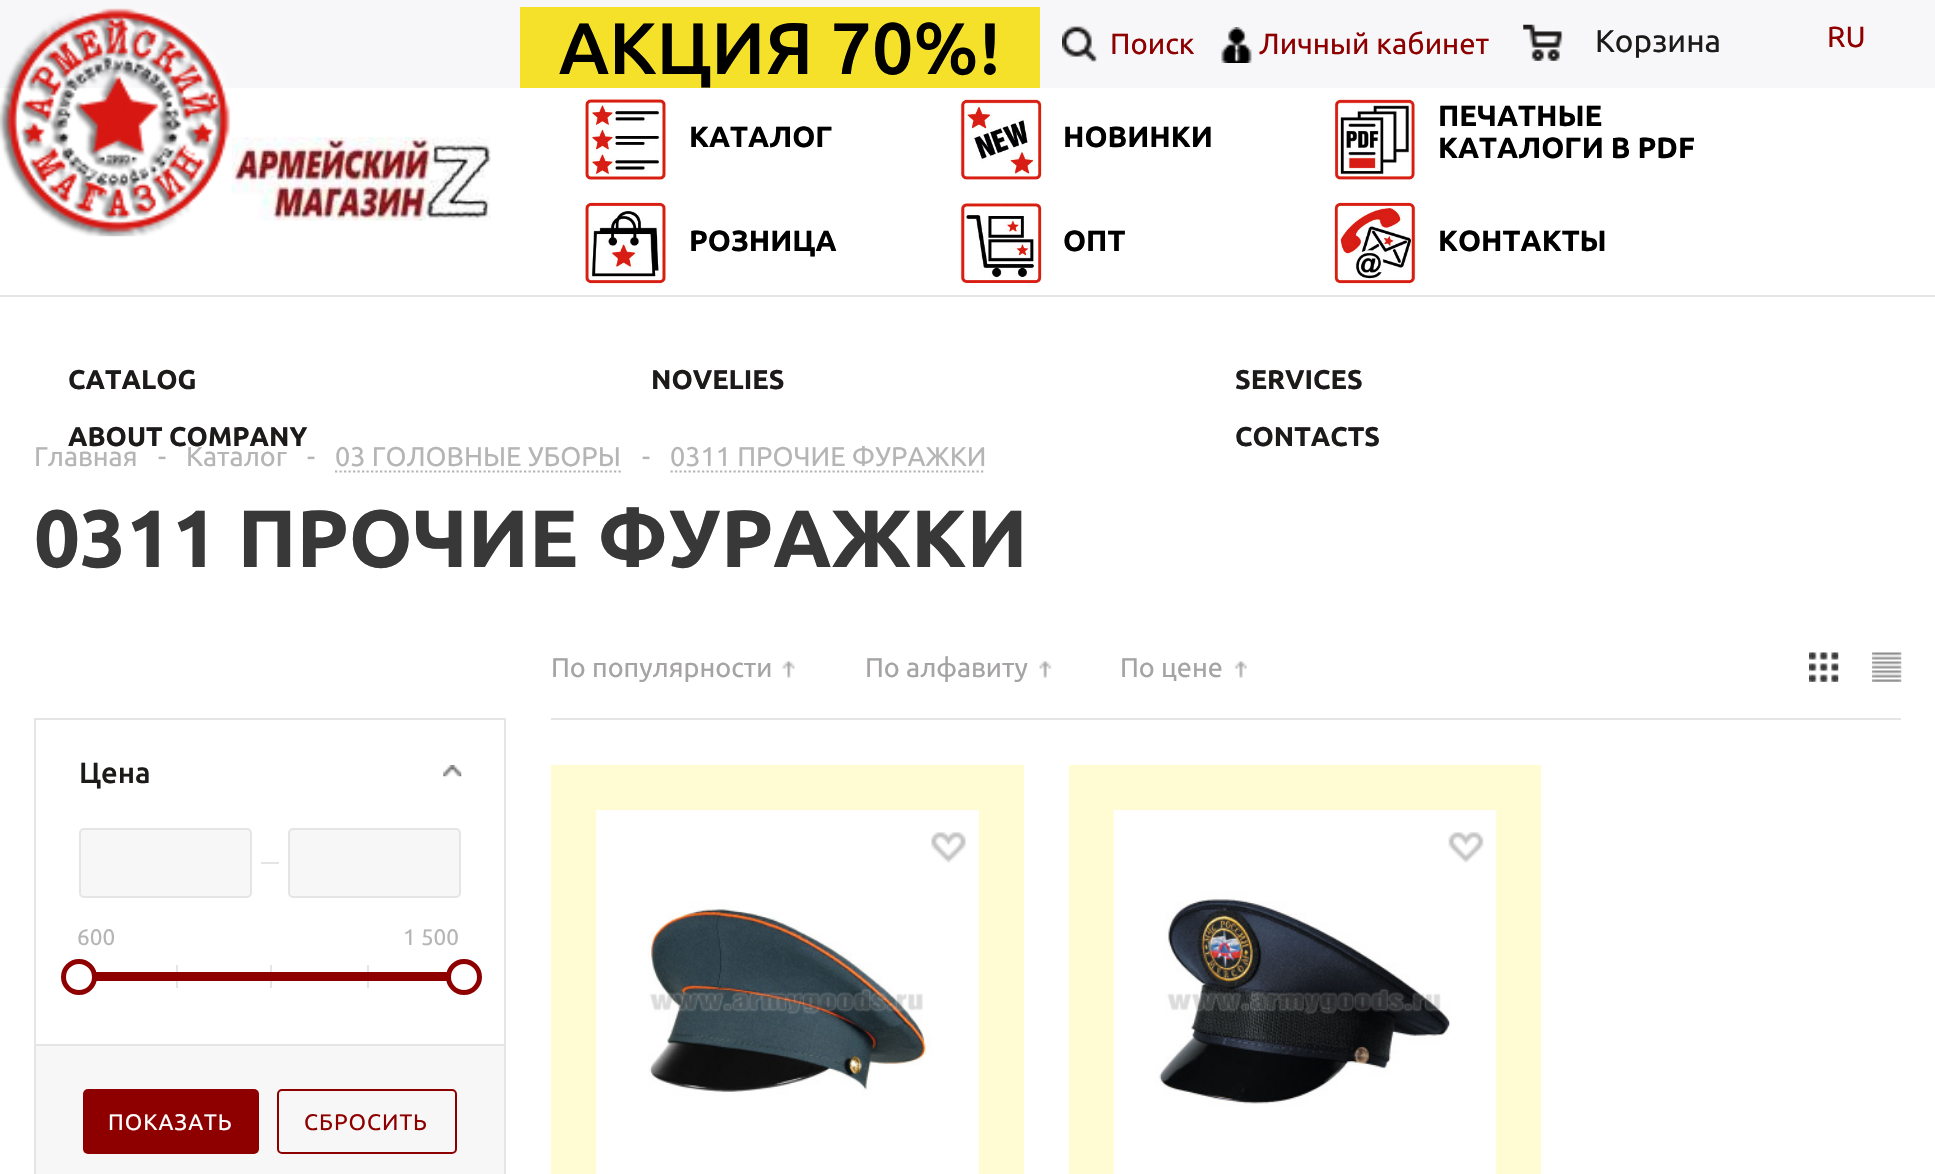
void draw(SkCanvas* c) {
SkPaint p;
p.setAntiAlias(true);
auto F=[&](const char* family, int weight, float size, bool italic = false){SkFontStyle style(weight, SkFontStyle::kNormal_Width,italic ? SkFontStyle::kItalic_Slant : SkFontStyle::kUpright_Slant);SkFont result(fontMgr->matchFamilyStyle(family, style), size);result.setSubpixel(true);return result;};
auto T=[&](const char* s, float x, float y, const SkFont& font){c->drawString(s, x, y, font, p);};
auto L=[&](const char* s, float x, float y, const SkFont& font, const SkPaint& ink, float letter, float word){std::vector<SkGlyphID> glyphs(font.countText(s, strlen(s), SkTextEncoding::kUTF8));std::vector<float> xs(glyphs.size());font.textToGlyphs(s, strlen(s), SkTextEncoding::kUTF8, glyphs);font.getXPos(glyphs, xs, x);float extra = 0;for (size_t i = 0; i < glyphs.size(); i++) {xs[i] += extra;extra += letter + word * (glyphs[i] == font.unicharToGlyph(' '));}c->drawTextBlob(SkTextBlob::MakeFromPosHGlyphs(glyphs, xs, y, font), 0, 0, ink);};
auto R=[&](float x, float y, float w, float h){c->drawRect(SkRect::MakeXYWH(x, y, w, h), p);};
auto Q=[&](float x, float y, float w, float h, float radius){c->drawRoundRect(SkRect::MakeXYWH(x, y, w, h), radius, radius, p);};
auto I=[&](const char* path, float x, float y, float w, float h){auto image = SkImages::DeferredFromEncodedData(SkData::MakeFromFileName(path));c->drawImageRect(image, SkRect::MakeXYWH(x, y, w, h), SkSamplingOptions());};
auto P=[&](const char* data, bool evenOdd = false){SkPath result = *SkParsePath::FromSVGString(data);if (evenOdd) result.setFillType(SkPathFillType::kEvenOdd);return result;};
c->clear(0xffffffff);
p.setColor(0xfff7f7f9);
R(0,0,1935,88);
p.setColor(0xfff5e02a);
R(520,7,520,81);
auto f1 = F("Ubuntu",500,73);
p.setColor(0xff000000);
T("АКЦИЯ 70%!",559,74,f1);
I("1.png",1062,26,35,36);
auto f2 = F("Ubuntu",400,29.25);
p.setColor(0xff8e0000);
T("Поиск",1110,54,f2);
I("2.png",1221,27,31,36);
T("Личный кабинет",1259,54,f2);
I("3.png",1523,24,40,37);
auto f3 = F("Ubuntu",400,31.5);
p.setColor(0xff1d1a1a);
T("Корзина",1595,52,f3);
p.setColor(0xff8e0000);
T("RU",1827,47,f2);
p.setColor(0xffe5e5e5);
R(0,295,1935,2);
I("4.png",0,8,231,229);
I("5.png",585,99,81,81);
auto f4 = F("Ubuntu",700,29.25);
p.setColor(0xff000000);
T("КАТАЛОГ",689,147,f4);
I("6.png",960,99,82,81);
T("НОВИНКИ",1063,147,f4);
I("7.png",1334,99,81,81);
T("ПЕЧАТНЫЕ",1438,126,f4);
T("КАТАЛОГИ В PDF",1438,158,f4);
I("8.png",585,202,81,82);
T("РОЗНИЦА",689,251,f4);
I("9.png",960,202,82,82);
T("ОПТ",1063,251,f4);
I("10.png",1334,202,82,82);
T("КОНТАКТЫ",1438,251,f4);
auto f5 = F("Ubuntu",700,27);
p.setColor(0xff1d1a1a);
T("CATALOG",68,389,f5);
T("NOVELIES",651,389,f5);
T("SERVICES",1235,389,f5);
T("ABOUT COMPANY",68,446,f5);
T("CONTACTS",1235,446,f5);
I("11.png",231,137,260,84);
auto f6 = F("Ubuntu",400,27);
p.setColor(0xffb6b5b5);
T("Главная",34,466,f6);
T("-",158,466,f6);
T("Каталог",186,466,f6);
T("-",307,466,f6);
T("03 ГОЛОВНЫЕ УБОРЫ",335,466,f6);
p.setStroke(true);
p.setStrokeWidth(2.2);
p.setColor(0xffb4b4b4);
p.setPathEffect(SkDashPathEffect::Make({{2.25f,2.25f}}, 0));
c->drawPath(P("M335 471.5h286"),p);
p.setPathEffect(nullptr);
p.setStroke(false);
p.setColor(0xffb6b5b5);
T("-",642,466,f6);
T("0311 ПРОЧИЕ ФУРАЖКИ",670,466,f6);
p.setStroke(true);
p.setColor(0xffb4b4b4);
p.setPathEffect(SkDashPathEffect::Make({{2.25f,2.25f}}, 0));
c->drawPath(P("M670.5 471.5h315"),p);
p.setPathEffect(nullptr);
auto f7 = F("Ubuntu",700,81);
p.setStroke(false);
p.setColor(0xff383838);
T("0311 ПРОЧИЕ ФУРАЖКИ",34,567,f7);
p.setColor(0xffe5e5e5);
R(551,718,1350,2);
p.setColor(0xffa5a3a3);
T("По популярности",551,677,f6);
I("12.png",782,661,13,17);
T("По алфавиту",865,677,f6);
I("13.png",1039,661,13,17);
T("По цене",1120,677,f6);
I("14.png",1234,661,13,17);
I("15.png",1809,652,30,30);
I("16.png",1872,652,30,30);
p.setColor(0xfffffcd3);
R(551,765,473,409);
I("17.png",596,810,383,364);
I("18.png",931,832,35,31);
R(1069,765,472,409);
I("19.png",1113,810,384,364);
I("20.png",1448,832,36,31);
p.setStroke(true);
p.setStrokeWidth(2);
p.setColor(0xffe5e5e5);
c->drawRect(SkRect::MakeXYWH(35,719,470,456),p);
p.setStroke(false);
R(36,1044,468,2);
auto f8 = F("Ubuntu",500,29.25);
p.setColor(0xff1d1a1a);
T("Цена",79,783,f8);
I("21.png",443,765,19,12);
p.setColor(0xfff7f7f7);
c->drawRoundRect(SkRect::MakeXYWH(80,829,171,68),4,4,p);
p.setStroke(true);
p.setColor(0xffe5e5e5);
c->drawRoundRect(SkRect::MakeXYWH(80,829,171,68),4,4,p);
p.setStroke(false);
R(261,862,18,2);
p.setColor(0xfff7f7f7);
c->drawRoundRect(SkRect::MakeXYWH(289,829,171,68),4,4,p);
p.setStroke(true);
p.setColor(0xffe5e5e5);
c->drawRoundRect(SkRect::MakeXYWH(289,829,171,68),4,4,p);
auto f9 = F("Ubuntu",400,22.5);
p.setStroke(false);
p.setColor(0xffb6b5b5);
T("600",77,945,f9);
T("1 500",403,945,f9);
p.setColor(0xffe5e5e5);
R(176,965,2,23);
R(270,965,2,23);
R(367,965,2,23);
p.setColor(0xff8e0000);
R(96,972,351,9);
p.setColor(0xffffffff);
c->drawCircle(79,977,15.5,p);
p.setStroke(true);
p.setStrokeWidth(5);
p.setColor(0xff8e0000);
c->drawCircle(79,977,15.5,p);
p.setStroke(false);
p.setColor(0xffffffff);
c->drawCircle(464,977,15.5,p);
p.setStroke(true);
p.setColor(0xff8e0000);
c->drawCircle(464,977,15.5,p);
p.setStroke(false);
p.setColor(0xfff7f7f7);
R(36,1046,468,128);
p.setColor(0xff8e0000);
Q(83,1089,176,65,5);
p.setColor(0xffffffff);
L("ПОКАЗАТЬ",108,1130,f9,p,1,0);
p.setStroke(true);
p.setStrokeWidth(2);
p.setColor(0xff8e0000);
c->drawRoundRect(SkRect::MakeXYWH(278,1090,178,63),4,4,p);
p.setStroke(false);
L("СБРОСИТЬ",304,1130,f9,p,1,0);
}
